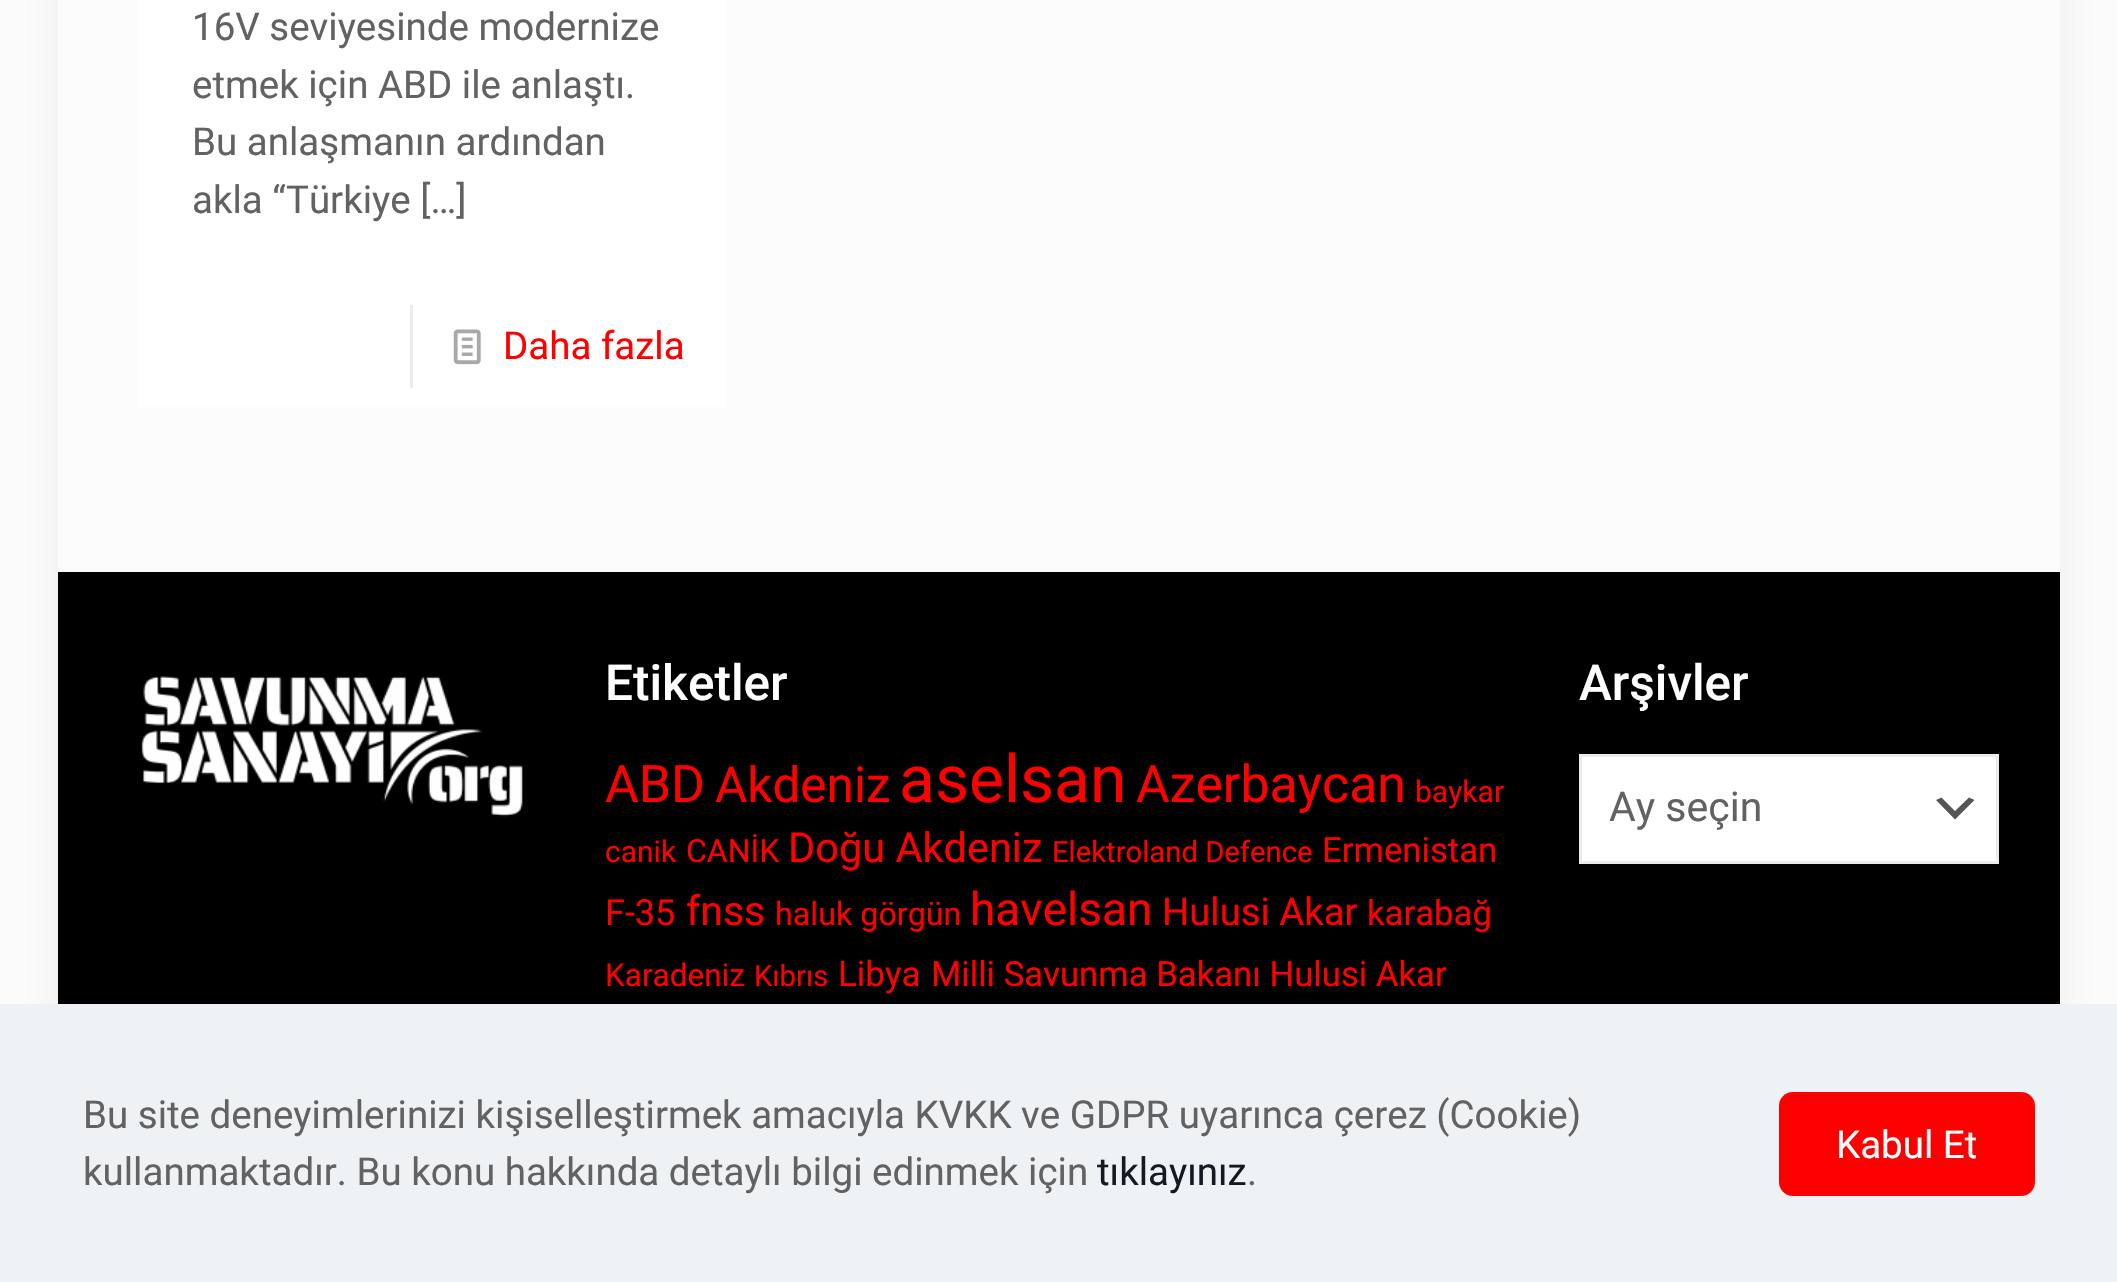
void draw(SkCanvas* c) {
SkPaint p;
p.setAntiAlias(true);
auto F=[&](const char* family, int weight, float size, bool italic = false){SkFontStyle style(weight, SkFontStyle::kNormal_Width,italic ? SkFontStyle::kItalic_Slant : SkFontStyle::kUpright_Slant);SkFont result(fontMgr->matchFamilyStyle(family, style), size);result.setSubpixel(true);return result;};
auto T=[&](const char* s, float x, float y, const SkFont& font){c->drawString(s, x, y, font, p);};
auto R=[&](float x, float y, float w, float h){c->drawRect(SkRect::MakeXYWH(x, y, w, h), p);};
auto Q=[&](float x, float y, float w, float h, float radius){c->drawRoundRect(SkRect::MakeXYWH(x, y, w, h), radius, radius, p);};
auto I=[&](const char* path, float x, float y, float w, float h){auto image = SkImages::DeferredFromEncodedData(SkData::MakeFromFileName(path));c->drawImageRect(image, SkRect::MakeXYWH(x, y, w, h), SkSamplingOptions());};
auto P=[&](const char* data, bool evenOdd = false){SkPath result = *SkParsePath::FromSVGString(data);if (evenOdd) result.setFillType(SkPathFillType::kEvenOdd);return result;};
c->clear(0xfffcfcfc);
p.setColor(0x0f000000);
p.setMaskFilter(SkMaskFilter::MakeBlur(kNormal_SkBlurStyle, 20.5));
c->drawRect(SkRect::MakeXYWH(58,-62,2002,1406),p);
p.setMaskFilter(nullptr);
p.setColor(0xfffcfcfc);
R(58,0,2002,572);
p.setColor(0xffffffff);
R(138,0,588,407);
auto f1 = F("Roboto",400,38.5);
p.setColor(0xff626262);
T("16V seviyesinde modernize",192,40,f1);
T("etmek için ABD ile anlaştı.",192,98,f1);
T("Bu anlaşmanın ardından",192,155,f1);
T("akla “Türkiye […]",192,213,f1);
p.setColor(0xffebebeb);
R(410,305,3,83);
I("1.png",453,329,28,36);
p.setColor(0xffff0000);
T("Daha fazla",503,359,f1);
p.setColor(0xff000000);
R(58,572,2002,432);
I("2.png",141,676,382,141);
auto f2 = F("Roboto",500,49.5);
p.setColor(0xffffffff);
T("Etiketler",605,700,f2);
auto f3 = F("Roboto",400,51.75);
p.setColor(0xffff0000);
T("ABD",605,802,f3);
auto f4 = F("Roboto",400,49.5);
T("Akdeniz",715,802,f4);
auto f5 = F("Roboto",400,66);
T("aselsan",899,802,f5);
T("Azerbaycan",1136,802,f3);
auto f6 = F("Roboto",400,30);
T("baykar",1415,802,f6);
T("canik",605,862,f6);
auto f7 = F("Roboto",400,32);
T("CANİK",686,862,f7);
auto f8 = F("Roboto",400,41.5);
T("Doğu Akdeniz",788,862,f8);
auto f9 = F("Roboto",400,29.25);
T("Elektroland Defence",1052,862,f9);
auto f10 = F("Roboto",400,34.7);
T("Ermenistan",1322,862,f10);
auto f11 = F("Roboto",400,36);
T("F-35",605,925,f11);
auto f12 = F("Roboto",400,41);
T("fnss",686,925,f12);
auto f13 = F("Roboto",400,32.25);
T("haluk görgün",775,925,f13);
auto f14 = F("Roboto",400,46);
T("havelsan",970,925,f14);
auto f15 = F("Roboto",400,38.25);
T("Hulusi Akar",1162,925,f15);
T("karabağ",1367,925,f10);
auto f16 = F("Roboto",400,31.5);
T("Karadeniz",605,986,f16);
T("Kıbrıs",754,986,f9);
auto f17 = F("Roboto",400,35);
T("Libya",838,986,f17);
T("Milli Savunma Bakanı Hulusi Akar",931,986,f10);
p.setColor(0xffffffff);
T("Arşivler",1579,700,f2);
R(1582,757,414,104);
p.setColor(0xff555555);
c->drawPath(P("M1941.5 797.5l13.5 13.5l14-13.5l5.5 2.5l-19.5 19.5l-19-19.5z"),p);
p.setStroke(true);
p.setStrokeWidth(3);
p.setColor(0xffebebeb);
c->drawRect(SkRect::MakeXYWH(1580.5,755.5,417,107),p);
p.setStroke(false);
p.setColor(0xff626262);
T("Ay seçin",1609,821,f12);
p.setColor(0xffeef2f5);
R(0,1004,2117,278);
p.setColor(0xff626262);
T("Bu site deneyimlerinizi kişiselleştirmek amacıyla KVKK ve GDPR uyarınca çerez (Cookie)",83,1128,f1);
T("kullanmaktadır. Bu konu hakkında detaylı bilgi edinmek için",83,1185,f1);
p.setColor(0xff161922);
T("tıklayınız",1097,1185,f1);
p.setColor(0xff626262);
T(".",1247,1185,f1);
p.setColor(0xffff0000);
Q(1779,1092,256,104,14);
p.setStroke(true);
p.setColor(0xfff70000);
c->drawRoundRect(SkRect::MakeXYWH(1783.5,1096.5,247,96),9.5,9.5,p);
p.setStroke(false);
p.setColor(0xffffffff);
T("Kabul Et",1836,1158,f1);
}
